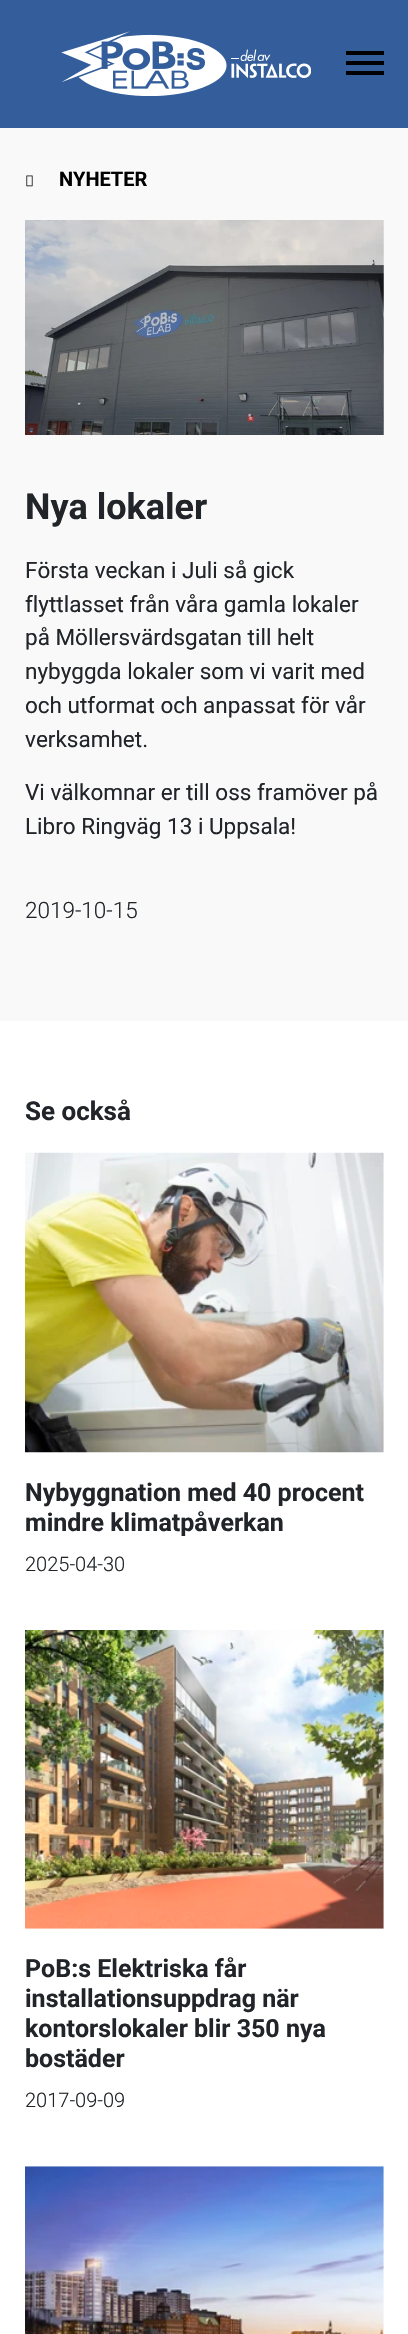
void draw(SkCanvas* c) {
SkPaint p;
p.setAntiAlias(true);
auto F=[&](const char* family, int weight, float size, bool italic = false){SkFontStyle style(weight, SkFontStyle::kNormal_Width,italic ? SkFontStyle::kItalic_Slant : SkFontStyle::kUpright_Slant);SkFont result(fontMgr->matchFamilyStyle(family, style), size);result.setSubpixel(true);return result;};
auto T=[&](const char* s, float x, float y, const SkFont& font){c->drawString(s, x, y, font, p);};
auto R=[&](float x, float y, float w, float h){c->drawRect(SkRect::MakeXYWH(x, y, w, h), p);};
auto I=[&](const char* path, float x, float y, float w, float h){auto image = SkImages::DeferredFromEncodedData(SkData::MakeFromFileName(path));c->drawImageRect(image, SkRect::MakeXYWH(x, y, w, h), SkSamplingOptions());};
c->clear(0xfff9f9f9);
p.setColor(0xff335e9b);
R(0,0,408,128);
I("1.png",61,31,250,65);
p.setColor(0xff000000);
R(346,51,38,4);
R(346,61,38,4);
R(346,71,38,4);
I("2.png",26,175,7,12);
auto f1 = F("Roboto",700,20);
T("NYHETER",59,186,f1);
I("3.png",25,220,359,215);
auto f2 = F("Roboto",700,36);
p.setColor(0xff212529);
T("Nya lokaler",25,519,f2);
auto f3 = F("Roboto",400,22.5);
T("Första veckan i Juli så gick",25,578,f3);
T("flyttlasset från våra gamla lokaler",25,612,f3);
T("på Möllersvärdsgatan till helt",25,645,f3);
T("nybyggda lokaler som vi varit med",25,679,f3);
T("och utformat och anpassat för vår",25,713,f3);
T("verksamhet.",25,747,f3);
T("Vi välkomnar er till oss framöver på",25,800,f3);
T("Libro Ringväg 13 i Uppsala!",25,834,f3);
auto f4 = F("Roboto",300,22.5);
T("2019-10-15",25,918,f4);
p.setColor(0xffffffff);
R(0,1021,408,1313);
auto f5 = F("Roboto",700,26);
p.setColor(0xff212529);
T("Se också",25,1120,f5);
I("4.png",25,1152,359,301);
auto f6 = F("Roboto",700,25);
T("Nybyggnation med 40 procent",25,1501,f6);
T("mindre klimatpåverkan",25,1531,f6);
auto f7 = F("Roboto",300,20);
T("2025-04-30",25,1571,f7);
I("5.png",25,1630,359,299);
T("PoB:s Elektriska får",25,1977,f6);
T("installationsuppdrag när",25,2007,f6);
T("kontorslokaler blir 350 nya",25,2037,f6);
T("bostäder",25,2067,f6);
T("2017-09-09",25,2107,f7);
I("6.png",25,2166,359,168);
}
